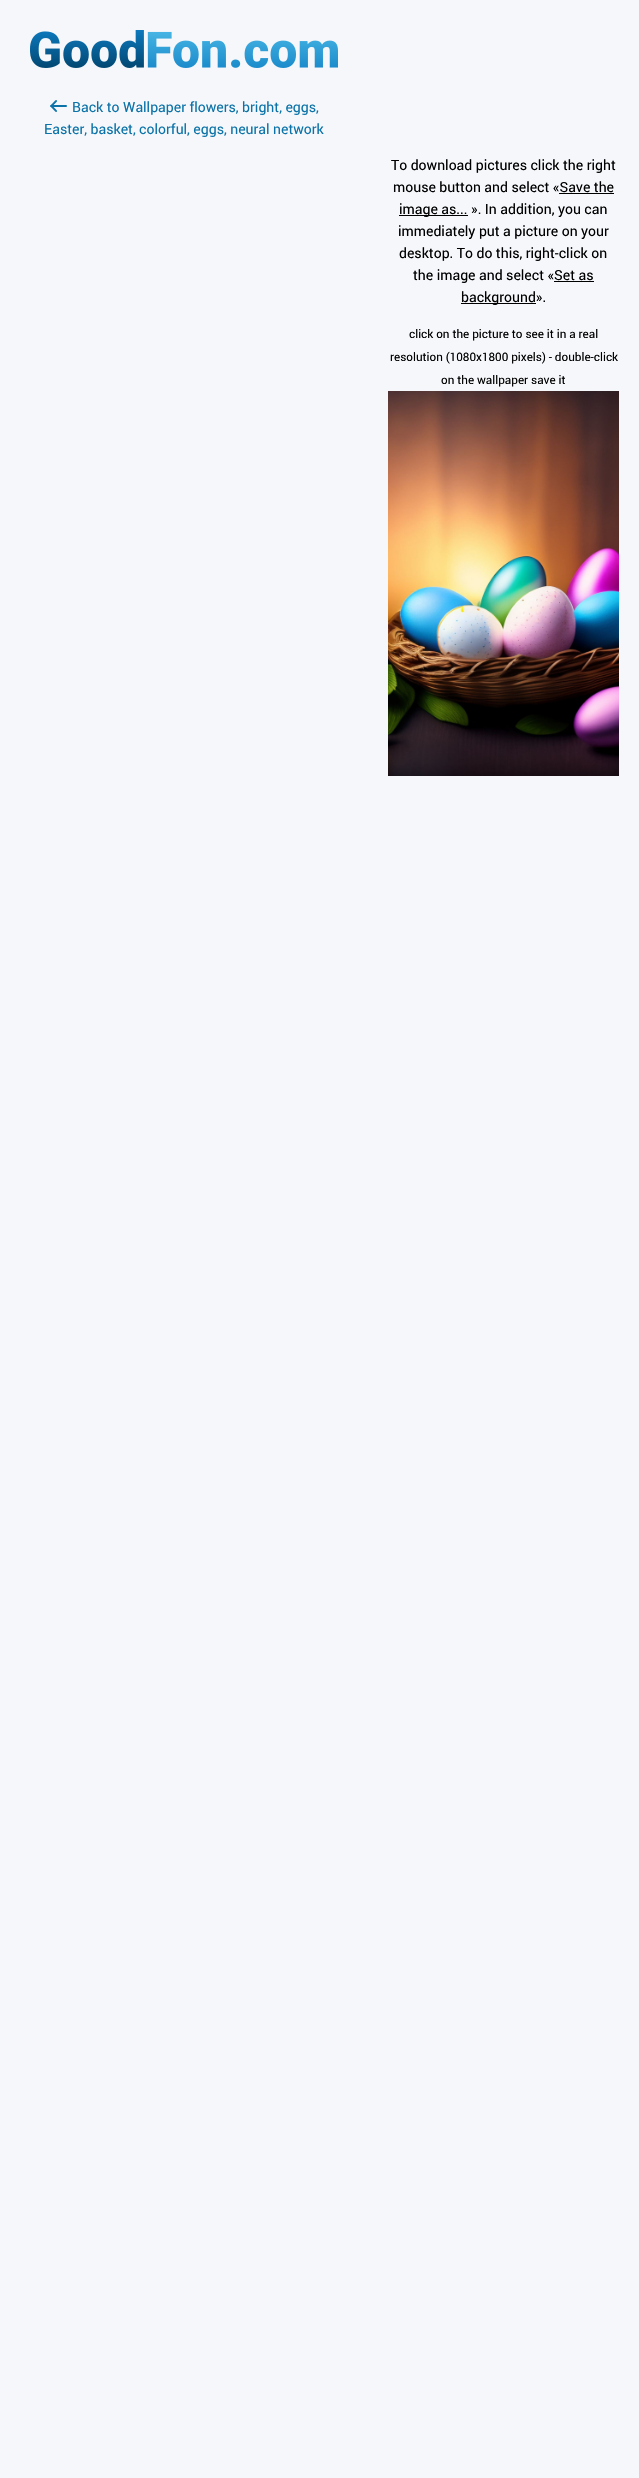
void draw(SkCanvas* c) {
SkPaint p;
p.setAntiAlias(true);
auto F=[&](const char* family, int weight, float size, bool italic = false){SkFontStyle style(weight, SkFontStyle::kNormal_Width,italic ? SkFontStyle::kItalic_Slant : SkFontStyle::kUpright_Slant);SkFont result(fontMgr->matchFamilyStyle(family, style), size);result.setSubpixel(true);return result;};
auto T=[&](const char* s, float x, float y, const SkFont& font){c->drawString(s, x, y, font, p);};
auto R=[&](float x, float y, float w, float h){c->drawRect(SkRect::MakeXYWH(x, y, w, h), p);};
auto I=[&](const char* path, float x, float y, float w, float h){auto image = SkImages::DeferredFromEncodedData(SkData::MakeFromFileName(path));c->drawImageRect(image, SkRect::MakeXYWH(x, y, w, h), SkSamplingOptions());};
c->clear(0xfff5f7fa);
I("1.png",30,30,308,38);
I("2.png",50,100,17,12);
auto f1 = F("Roboto",400,14);
p.setColor(0xff0c73a9);
T("Back to Wallpaper flowers, bright, eggs,",72,112,f1);
T("Easter, basket, colorful, eggs, neural network",44,134,f1);
p.setColor(0xff000000);
T("To download pictures click the right",391,170,f1);
T("mouse button and select «Save the",393,192,f1);
R(399,215,69,1);
T("image as... ». In addition, you can",399,214,f1);
R(559,193,55,1);
T("immediately put a picture on your",398,236,f1);
T("desktop. To do this, right-click on",399,258,f1);
T("the image and select «Set as",413,280,f1);
R(461,303,75,1);
T("background».",461,302,f1);
R(554,281,40,1);
auto f2 = F("Roboto",400,11.7);
T("click on the picture to see it in a real",409,338,f2);
T("resolution (1080x1800 pixels) - double-click",390,361,f2);
T("on the wallpaper save it",441,384,f2);
I("3.png",388,391,231,385);
}
